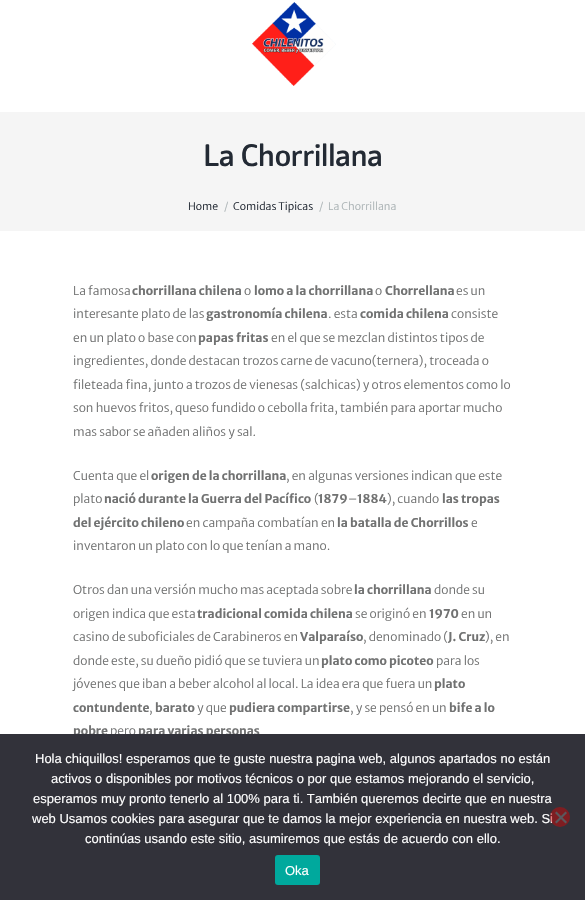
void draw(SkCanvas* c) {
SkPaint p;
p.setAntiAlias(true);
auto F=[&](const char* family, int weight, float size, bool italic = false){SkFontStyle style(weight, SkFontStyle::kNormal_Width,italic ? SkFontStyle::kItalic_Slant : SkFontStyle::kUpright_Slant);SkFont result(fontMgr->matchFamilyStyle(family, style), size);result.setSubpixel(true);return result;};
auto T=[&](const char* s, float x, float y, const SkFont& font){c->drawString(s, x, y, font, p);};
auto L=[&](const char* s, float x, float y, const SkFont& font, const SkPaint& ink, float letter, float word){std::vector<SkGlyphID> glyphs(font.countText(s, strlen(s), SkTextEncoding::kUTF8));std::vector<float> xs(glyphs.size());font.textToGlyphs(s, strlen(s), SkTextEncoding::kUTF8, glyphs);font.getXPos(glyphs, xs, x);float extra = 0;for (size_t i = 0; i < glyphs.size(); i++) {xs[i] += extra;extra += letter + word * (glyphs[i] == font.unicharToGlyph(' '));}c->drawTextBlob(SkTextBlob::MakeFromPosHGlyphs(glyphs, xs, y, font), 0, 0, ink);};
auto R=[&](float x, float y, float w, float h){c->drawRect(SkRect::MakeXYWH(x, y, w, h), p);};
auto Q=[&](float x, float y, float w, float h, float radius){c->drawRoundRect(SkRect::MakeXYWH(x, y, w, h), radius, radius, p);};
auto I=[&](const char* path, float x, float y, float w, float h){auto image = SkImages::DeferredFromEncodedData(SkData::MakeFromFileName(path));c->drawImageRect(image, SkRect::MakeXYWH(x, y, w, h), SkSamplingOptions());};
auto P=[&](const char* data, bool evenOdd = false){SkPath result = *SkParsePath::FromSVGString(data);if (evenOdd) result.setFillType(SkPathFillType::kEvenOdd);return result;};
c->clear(0xffffffff);
I("1.png",252,2,84,84);
p.setColor(0xfff5f5f5);
R(0,112,585,119);
auto f1 = F("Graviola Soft",500,30);
p.setColor(0xff232a34);
L("La Chorrillana",203,166,f1,p,-.6,0);
auto f2 = F("Merriweather Sans",300,10.5);
T("Home",188,210,f2);
p.setColor(0xffacb4b6);
T("/",224,210,f2);
p.setColor(0xff232a34);
T("Comidas Tipicas",233,210,f2);
p.setColor(0xffacb4b6);
T("/",319,210,f2);
T("La Chorrillana",328,210,f2);
auto f3 = F("Merriweather Sans",300,12);
p.setColor(0xff717272);
T("La famosa",73,295,f3);
auto f4 = F("Merriweather Sans",700,12);
T("chorrillana chilena",132,295,f4);
T("o",244,295,f3);
T("lomo a la chorrillana",254,295,f4);
T("o",375,295,f3);
T("Chorrellana",385,295,f4);
T("es un",456,295,f3);
T("interesante plato de las",73,318,f3);
T("gastronomía chilena",206,318,f4);
T(". esta",328,318,f3);
T("comida chilena",360,318,f4);
T("consiste",451,318,f3);
T("en un plato o base con",73,342,f3);
T("papas fritas",198,342,f4);
T("en el que se mezclan distintos tipos de",271,342,f3);
T("ingredientes, donde destacan trozos carne de vacuno(ternera), troceada o",73,365,f3);
T("fileteada fina, junto a trozos de vienesas (salchicas) y otros elementos como lo",73,389,f3);
T("son huevos fritos, queso fundido o cebolla frita, también para aportar mucho",73,412,f3);
T("mas sabor se añaden aliños y sal.",73,436,f3);
T("Cuenta que el",73,480,f3);
T("origen de la chorrillana",151,480,f4);
T(", en algunas versiones indican que este",286,480,f3);
T("plato",73,503,f3);
T("nació durante la Guerra del Pacífico",104,503,f4);
T("(",314,503,f3);
T("1879",318,503,f4);
T("–",348,503,f3);
T("1884",357,503,f4);
T("), cuando",387,503,f3);
T("las tropas",442,503,f4);
T("del ejército chileno",73,527,f4);
T("en campaña combatían en",186,527,f3);
T("la batalla de Chorrillos",337,527,f4);
T("e",471,527,f3);
T("inventaron un plato con lo que tenían a mano.",73,550,f3);
T("Otros dan una versión mucho mas aceptada sobre",73,594,f3);
T("la chorrillana",354,594,f4);
T("donde su",434,594,f3);
T("origen indica que esta",73,618,f3);
T("tradicional comida chilena",197,618,f4);
T("se originó en",355,618,f3);
T("1970",429,618,f4);
T("en un",461,618,f3);
T("casino de suboficiales de Carabineros en",73,641,f3);
T("Valparaíso",300,641,f4);
T(", denominado (",363,641,f3);
T("J. Cruz",448,641,f4);
T("), en",485,641,f3);
T("donde este, su dueño pidió que se tuviera un",73,665,f3);
T("plato como picoteo",321,665,f4);
T("para los",436,665,f3);
T("jóvenes que iban a beber alcohol al local. La idea era que fuera un",73,688,f3);
T("plato",434,688,f4);
T("contundente",73,712,f4);
T(",",149,712,f3);
T("barato",155,712,f4);
T("y que",197,712,f3);
T("pudiera compartirse",229,712,f4);
T(", y se pensó en un",350,712,f3);
T("bife a lo",449,712,f4);
T("pobre",73,735,f4);
T("pero",110,735,f3);
T("para varias personas",138,735,f4);
p.setColor(0xff32323a);
R(0,734,585,166);
auto f5 = F("Liberation Sans",400,13);
p.setColor(0xffffffff);
T("Hola chiquillos! esperamos que te guste nuestra pagina web, algunos apartados no están",35,763,f5);
T("activos o disponibles por motivos técnicos o por que estamos mejorando el servicio,",51,783,f5);
T("esperamos muy pronto tenerlo al 100% para ti. También queremos decirte que en nuestra",33,803,f5);
T("web Usamos cookies para asegurar que te damos la mejor experiencia en nuestra web. Si",32,823,f5);
T("continúas usando este sitio, asumiremos que estás de acuerdo con ello.",85,843,f5);
p.setColor(0x80ca0808);
c->drawCircle(560,817,10,p);
p.setColor(0xff59595d);
c->drawPath(P("M565.5 811.5l1.5 1.5l-10.5 10.5l-1.5-1.5z"),p);
c->drawPath(P("M555 813l1.5-1.5l10.5 10.5l-1.5 1.5z"),p);
p.setColor(0xff00a99d);
Q(275,855,45,30,3);
p.setColor(0xffffffff);
T("Oka",285,875,f5);
}
